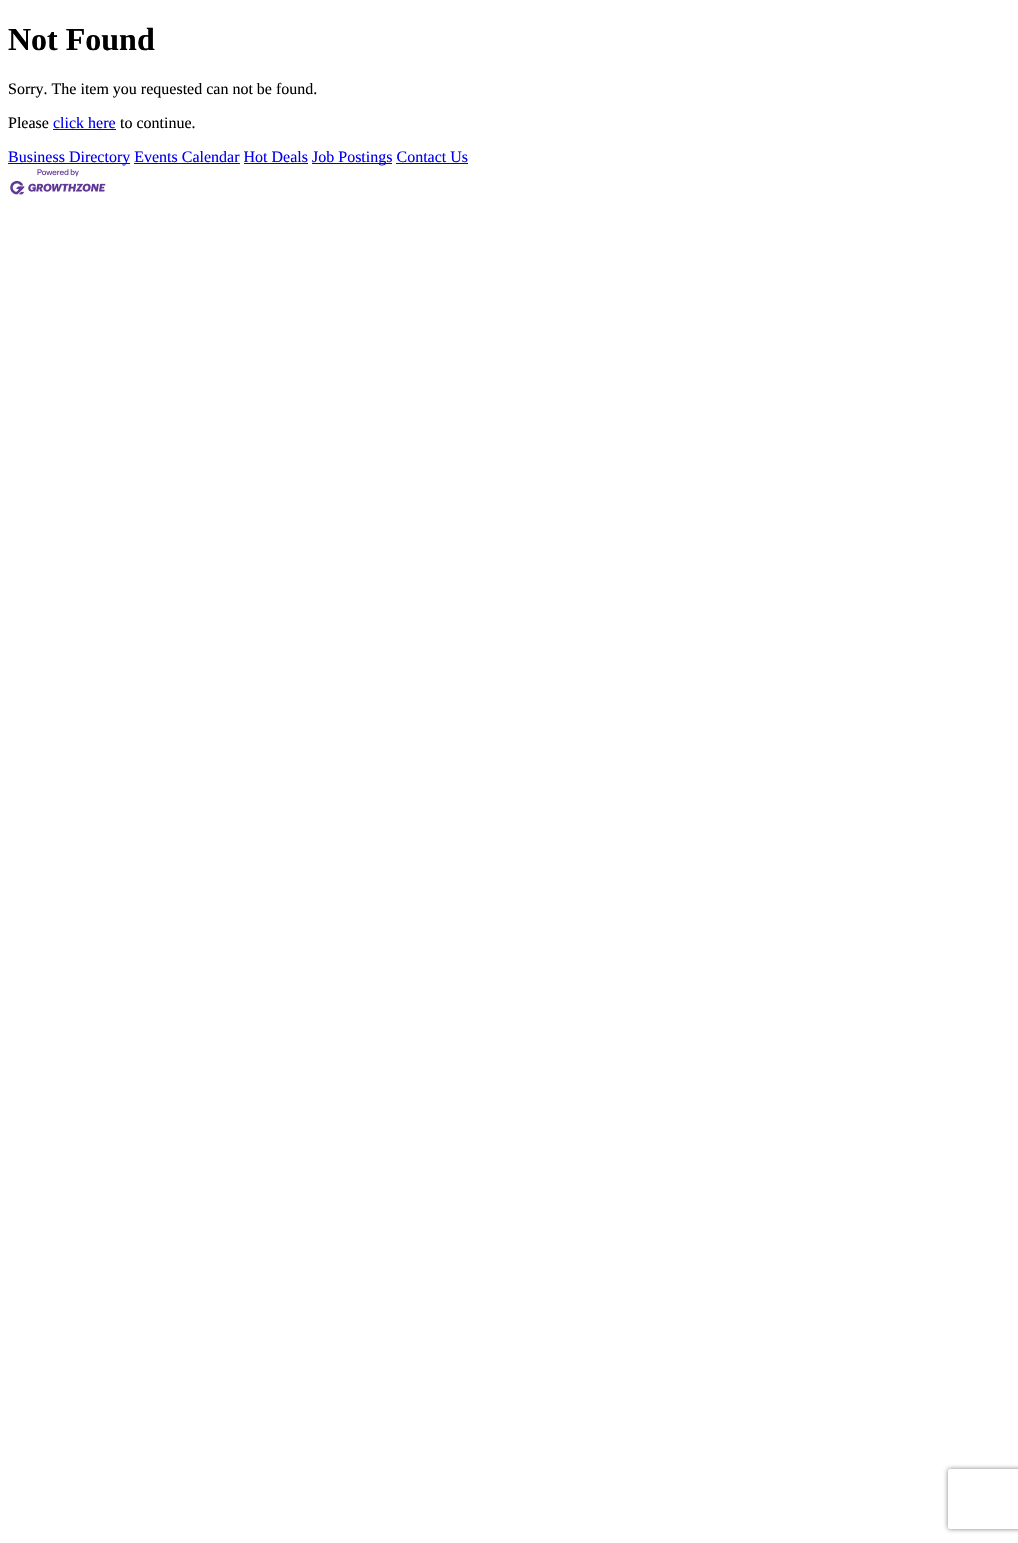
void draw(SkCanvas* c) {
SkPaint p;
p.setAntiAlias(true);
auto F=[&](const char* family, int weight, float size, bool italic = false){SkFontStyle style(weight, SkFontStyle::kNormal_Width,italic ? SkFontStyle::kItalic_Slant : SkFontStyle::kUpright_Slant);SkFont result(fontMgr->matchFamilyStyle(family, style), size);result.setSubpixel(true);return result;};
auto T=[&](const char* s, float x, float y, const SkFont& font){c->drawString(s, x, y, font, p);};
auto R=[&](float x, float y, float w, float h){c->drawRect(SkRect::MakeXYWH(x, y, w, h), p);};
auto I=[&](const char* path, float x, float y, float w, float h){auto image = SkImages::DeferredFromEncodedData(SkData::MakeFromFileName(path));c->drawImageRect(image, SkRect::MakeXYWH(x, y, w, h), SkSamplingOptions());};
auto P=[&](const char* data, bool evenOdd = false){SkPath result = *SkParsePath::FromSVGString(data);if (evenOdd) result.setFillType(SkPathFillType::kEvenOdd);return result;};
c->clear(0xffffffff);
auto f1 = F("Liberation Serif",700,32);
p.setColor(0xff000000);
T("Not Found",8,50,f1);
auto f2 = F("Liberation Serif",400,16);
T("Sorry. The item you requested can not be found.",8,94,f2);
T("Please",8,128,f2);
p.setColor(0xff0000ee);
T("click here",53,128,f2);
R(53,129,63,1);
p.setColor(0xff000000);
T("to continue.",120,128,f2);
p.setColor(0xff0000ee);
R(8,163,122,1);
T("Business Directory Events Calendar Hot Deals",8,162,f2);
R(312,163,80,1);
T("Job Postings Contact Us",312,162,f2);
R(134,163,106,1);
R(244,163,64,1);
R(396,163,72,1);
I("1.png",10,169,96,26);
c->save();
c->clipPath(P("M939 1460h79v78h-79zm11 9h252c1 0 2 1 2 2v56c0 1-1 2-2 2h-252c-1 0-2-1-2-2v-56c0-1 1-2 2-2z",true),true);
p.setColor(0xff808080);
p.setMaskFilter(SkMaskFilter::MakeBlur(kNormal_SkBlurStyle, 2.5));
c->drawRoundRect(SkRect::MakeXYWH(948,1469,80,60),2,2,p);
p.setMaskFilter(nullptr);
c->restore();
}
